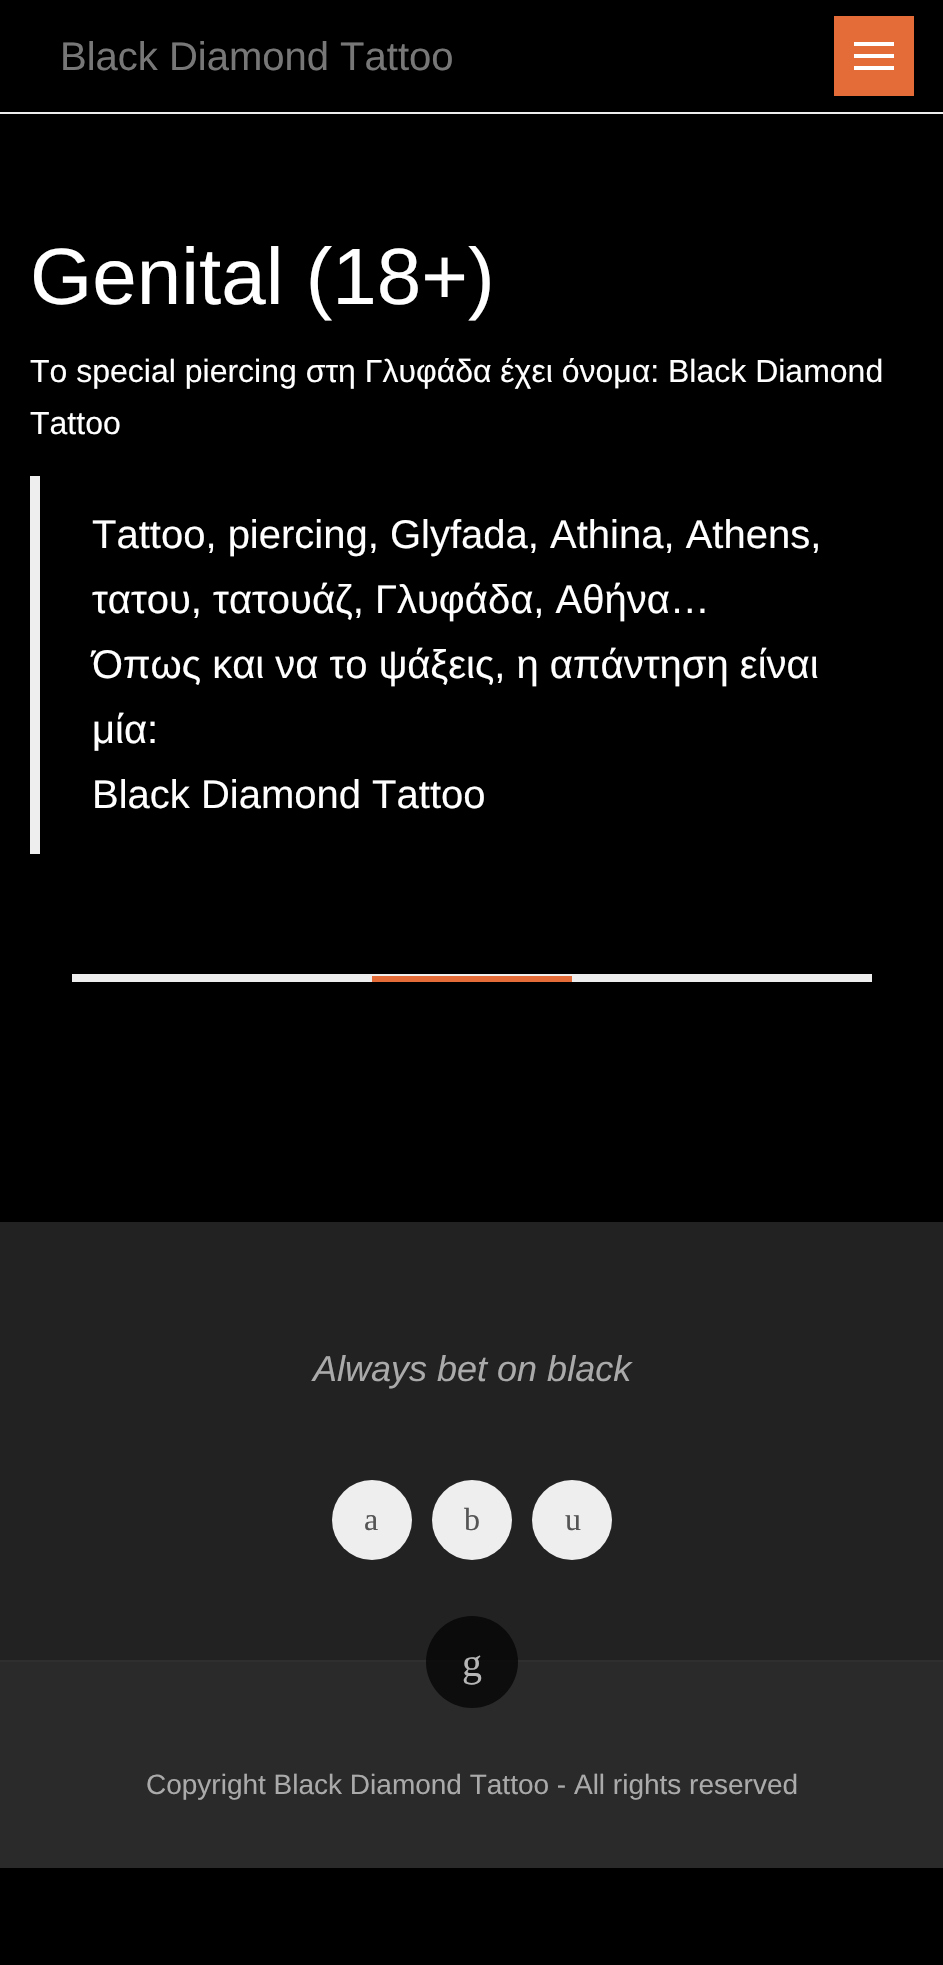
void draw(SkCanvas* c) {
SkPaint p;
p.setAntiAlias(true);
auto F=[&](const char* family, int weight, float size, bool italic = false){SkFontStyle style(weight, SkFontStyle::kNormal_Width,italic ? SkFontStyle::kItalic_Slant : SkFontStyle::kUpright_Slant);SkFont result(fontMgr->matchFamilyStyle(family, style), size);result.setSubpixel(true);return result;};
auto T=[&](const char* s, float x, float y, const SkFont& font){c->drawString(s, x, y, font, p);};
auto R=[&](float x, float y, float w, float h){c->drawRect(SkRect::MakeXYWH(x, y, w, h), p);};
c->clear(0xff000000);
p.setColor(0xffeeeeee);
R(0,112,943,2);
auto f1 = F("Liberation Sans",400,40);
p.setColor(0xff777777);
T("Black Diamond Tattoo",60,70,f1);
p.setColor(0xffe36c39);
R(834,16,80,80);
p.setColor(0xffffffff);
R(854,54,40,4);
R(854,42,40,4);
R(854,66,40,4);
auto f2 = F("Liberation Sans",400,80);
T("Genital (18+)",30,304,f2);
auto f3 = F("Liberation Sans",400,32);
T("Το special piercing στη Γλυφάδα έχει όνομα: Black Diamond",30,382,f3);
T("Tattoo",30,434,f3);
p.setColor(0xffeeeeee);
R(30,476,10,378);
p.setColor(0xffffffff);
T("Tattoo, piercing, Glyfada, Athina, Athens,",92,548,f1);
T("τατου, τατουάζ, Γλυφάδα, Αθήνα…",92,613,f1);
T("Όπως και να το ψάξεις, η απάντηση είναι",92,678,f1);
T("μία:",92,743,f1);
T("Black Diamond Tattoo",92,808,f1);
p.setColor(0xffeeeeee);
R(72,974,800,8);
p.setColor(0xffe36c39);
R(372,976,200,6);
p.setColor(0xff222222);
R(0,1222,943,438);
auto f4 = F("Liberation Sans",400,36,true);
p.setColor(0xffaaaaaa);
T("Always bet on black",313,1381,f4);
p.setColor(0xffeeeeee);
c->drawCircle(372,1520,40,p);
auto f5 = F("Liberation Serif",400,32);
p.setColor(0xff555555);
T("a",364,1530,f5);
p.setColor(0xffeeeeee);
c->drawCircle(472,1520,40,p);
p.setColor(0xff555555);
T("b",464,1530,f5);
p.setColor(0xffeeeeee);
c->drawCircle(572,1520,40,p);
p.setColor(0xff555555);
T("u",565,1530,f5);
p.setColor(0xff2a2a2a);
R(0,1662,943,206);
p.setColor(0xff2f2f2f);
R(0,1660,943,2);
p.setColor(0xb3000000);
c->drawCircle(472,1662,46,p);
auto f6 = F("Liberation Serif",400,40);
p.setColor(0xffb6b6b6);
T("g",462,1676,f6);
auto f7 = F("Liberation Sans",400,28);
p.setColor(0xffaaaaaa);
T("Copyright Black Diamond Tattoo - All rights reserved",146,1794,f7);
}
